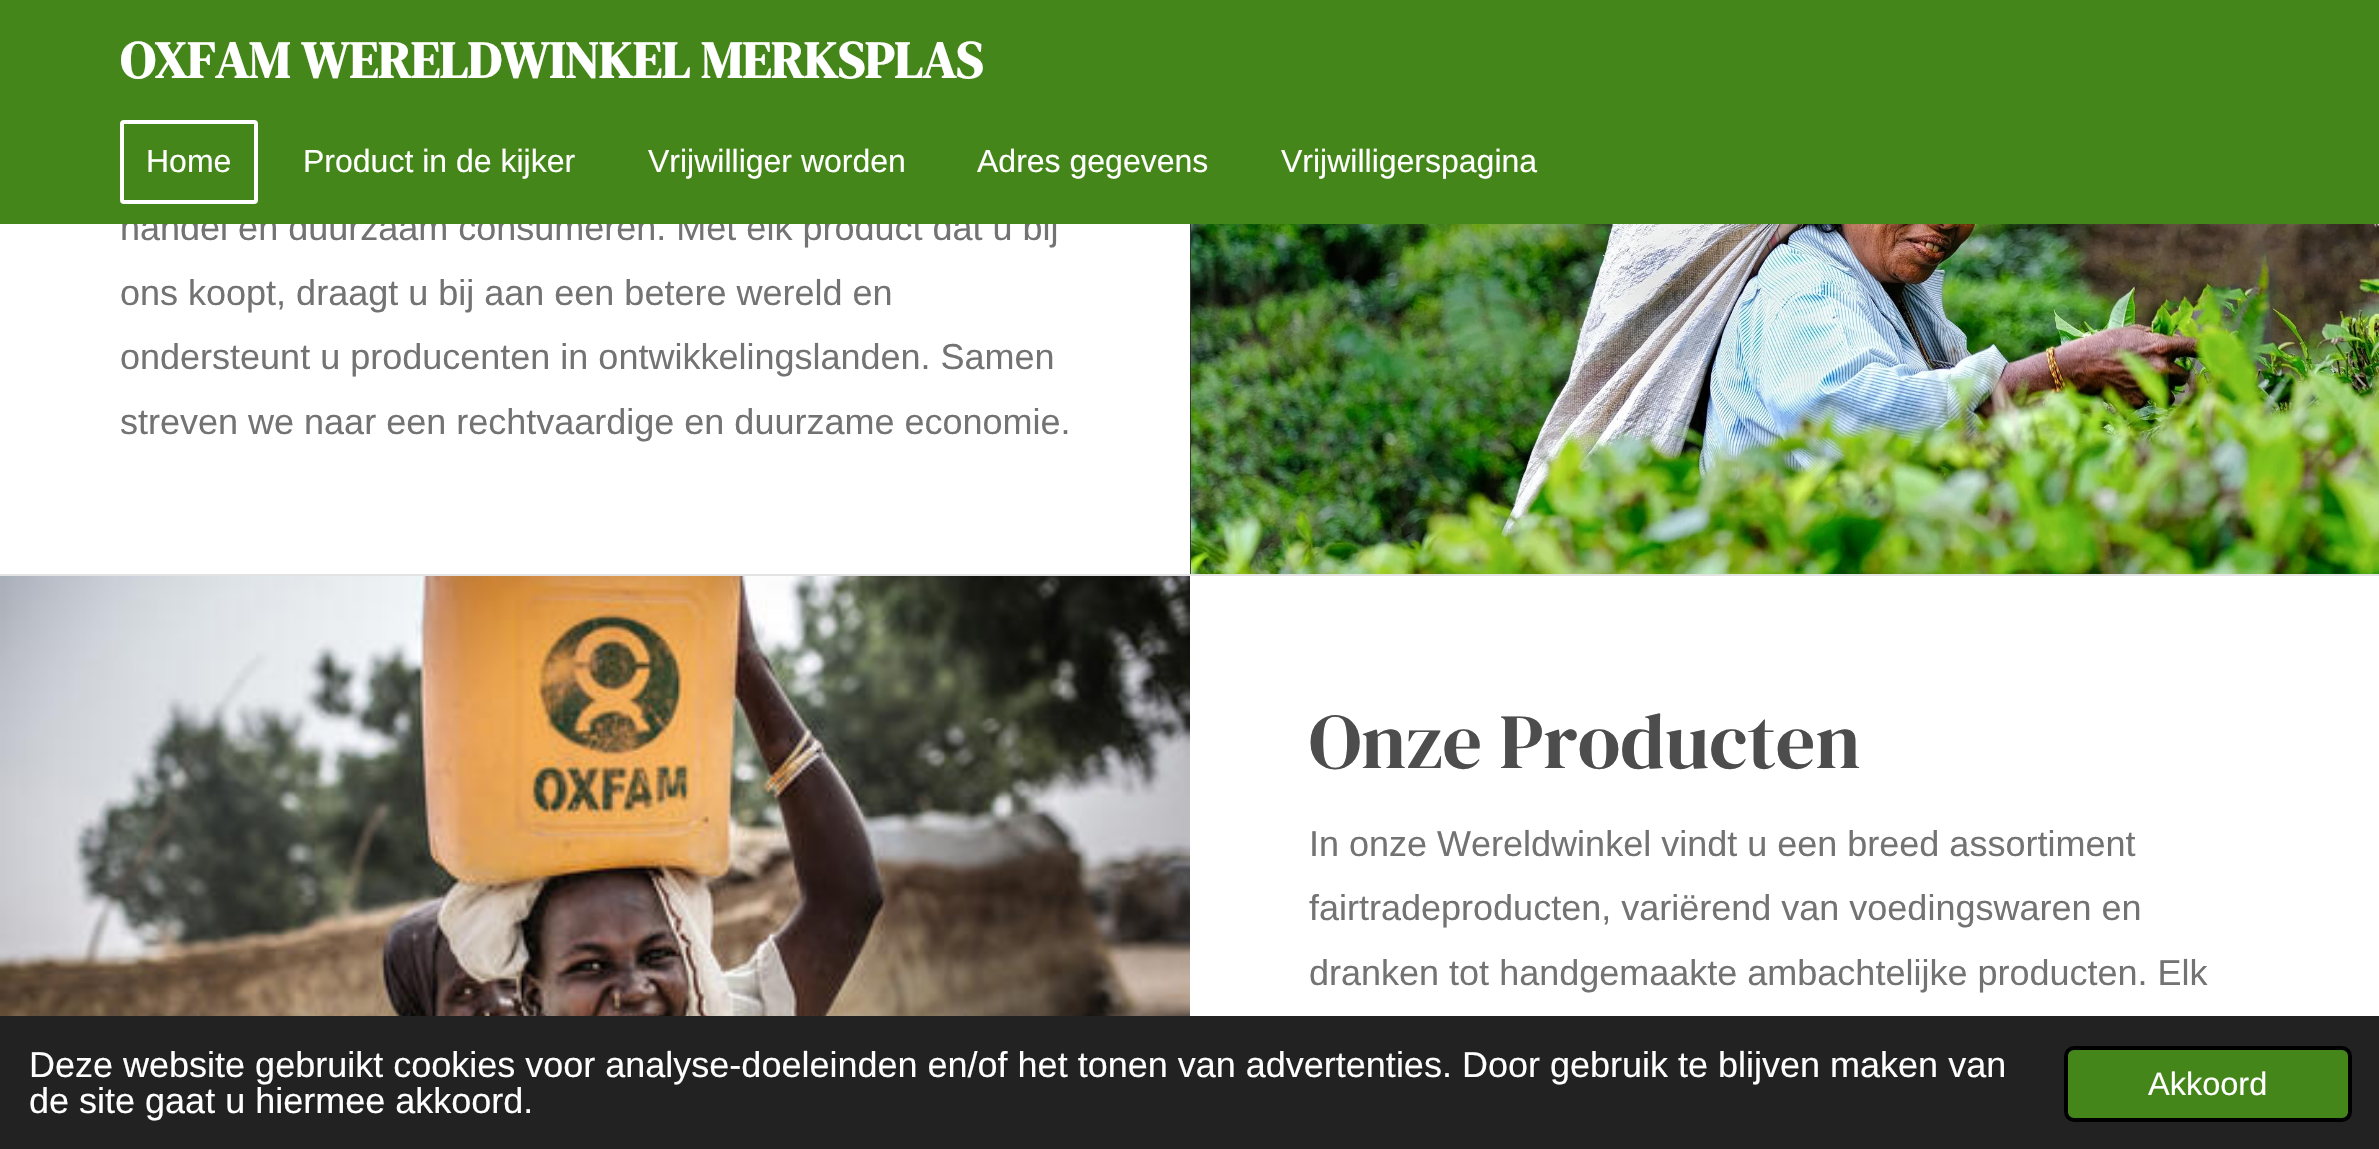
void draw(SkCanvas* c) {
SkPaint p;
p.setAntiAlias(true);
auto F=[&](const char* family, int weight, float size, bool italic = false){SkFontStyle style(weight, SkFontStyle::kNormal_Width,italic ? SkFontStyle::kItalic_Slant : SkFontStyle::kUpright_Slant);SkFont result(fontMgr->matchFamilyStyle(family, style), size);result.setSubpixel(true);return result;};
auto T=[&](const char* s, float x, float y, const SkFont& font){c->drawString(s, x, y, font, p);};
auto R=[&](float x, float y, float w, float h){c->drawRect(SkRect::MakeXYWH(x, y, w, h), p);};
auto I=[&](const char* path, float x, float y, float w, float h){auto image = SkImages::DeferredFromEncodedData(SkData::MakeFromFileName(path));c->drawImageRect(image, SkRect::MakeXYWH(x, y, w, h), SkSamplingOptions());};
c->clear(0xffffffff);
auto f1 = F("Liberation Sans",400,36);
p.setColor(0xff737373);
T("handel en duurzaam consumeren. Met elk product dat u bij",120,240,f1);
p.setColor(0xff448619);
R(0,0,2379,224);
auto f2 = F("DM Serif Display",700,52);
p.setColor(0xffffffff);
T("OXFAM WERELDWINKEL MERKSPLAS",120,78,f2);
p.setStroke(true);
p.setStrokeWidth(4);
c->drawRoundRect(SkRect::MakeXYWH(122,122,134,80),2,2,p);
auto f3 = F("Liberation Sans",400,32);
p.setStroke(false);
T("Home",146,172,f3);
T("Product in de kijker",303,172,f3);
T("Vrijwilliger worden",648,172,f3);
T("Adres gegevens",977,172,f3);
T("Vrijwilligerspagina",1281,172,f3);
p.setColor(0xff737373);
T("ons koopt, draagt u bij aan een betere wereld en",120,305,f1);
T("ondersteunt u producenten in ontwikkelingslanden. Samen",120,369,f1);
T("streven we naar een rechtvaardige en duurzame economie.",120,434,f1);
I("1.png",1190,224,1189,350);
p.setColor(0xffe3e3e3);
R(0,574,2379,2);
I("2.png",0,576,1190,440);
auto f4 = F("DM Serif Display",400,78);
p.setColor(0xff4d4d4d);
T("Onze Producten",1309,768,f4);
p.setColor(0xff737373);
T("In onze Wereldwinkel vindt u een breed assortiment",1309,856,f1);
T("fairtradeproducten, variërend van voedingswaren en",1309,920,f1);
T("dranken tot handgemaakte ambachtelijke producten. Elk",1309,985,f1);
p.setColor(0xff222222);
R(0,1016,2379,133);
p.setColor(0xffffffff);
T("Deze website gebruikt cookies voor analyse-doeleinden en/of het tonen van advertenties. Door gebruik te blijven maken van",29,1077,f1);
T("de site gaat u hiermee akkoord.",29,1113,f1);
p.setColor(0xff448619);
c->drawRoundRect(SkRect::MakeXYWH(2066,1048,284,72),8,8,p);
p.setStroke(true);
p.setColor(0xff000000);
c->drawRoundRect(SkRect::MakeXYWH(2066,1048,284,72),8,8,p);
auto f5 = F("Liberation Sans",400,32.5);
p.setStroke(false);
p.setColor(0xffffffff);
T("Akkoord",2148,1095,f5);
}
